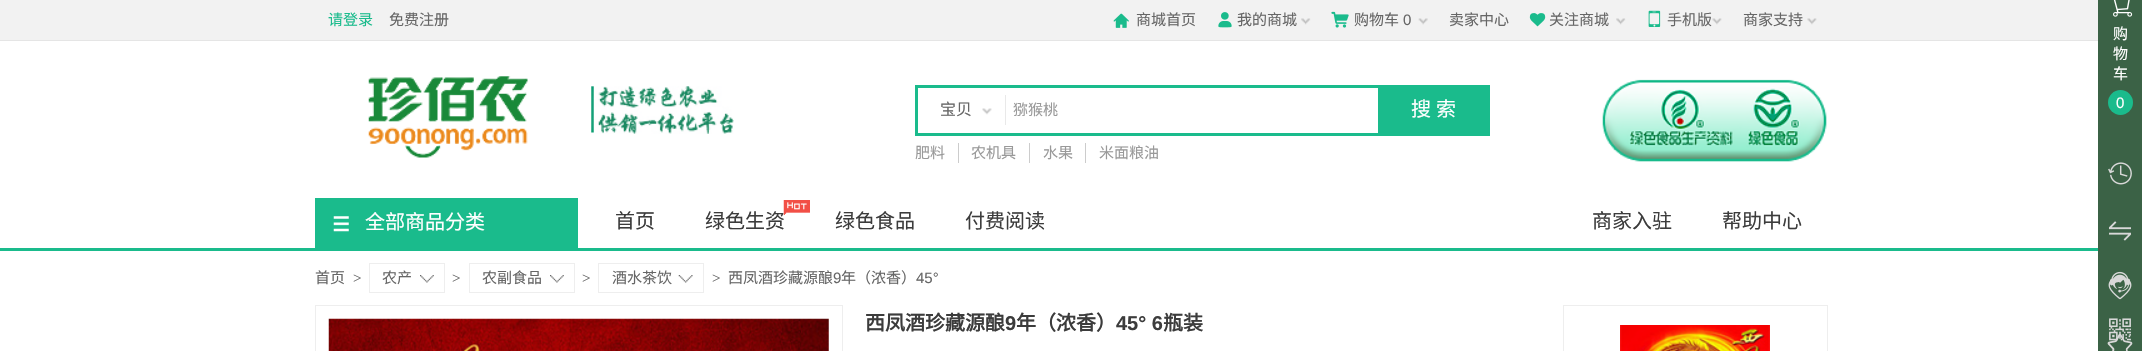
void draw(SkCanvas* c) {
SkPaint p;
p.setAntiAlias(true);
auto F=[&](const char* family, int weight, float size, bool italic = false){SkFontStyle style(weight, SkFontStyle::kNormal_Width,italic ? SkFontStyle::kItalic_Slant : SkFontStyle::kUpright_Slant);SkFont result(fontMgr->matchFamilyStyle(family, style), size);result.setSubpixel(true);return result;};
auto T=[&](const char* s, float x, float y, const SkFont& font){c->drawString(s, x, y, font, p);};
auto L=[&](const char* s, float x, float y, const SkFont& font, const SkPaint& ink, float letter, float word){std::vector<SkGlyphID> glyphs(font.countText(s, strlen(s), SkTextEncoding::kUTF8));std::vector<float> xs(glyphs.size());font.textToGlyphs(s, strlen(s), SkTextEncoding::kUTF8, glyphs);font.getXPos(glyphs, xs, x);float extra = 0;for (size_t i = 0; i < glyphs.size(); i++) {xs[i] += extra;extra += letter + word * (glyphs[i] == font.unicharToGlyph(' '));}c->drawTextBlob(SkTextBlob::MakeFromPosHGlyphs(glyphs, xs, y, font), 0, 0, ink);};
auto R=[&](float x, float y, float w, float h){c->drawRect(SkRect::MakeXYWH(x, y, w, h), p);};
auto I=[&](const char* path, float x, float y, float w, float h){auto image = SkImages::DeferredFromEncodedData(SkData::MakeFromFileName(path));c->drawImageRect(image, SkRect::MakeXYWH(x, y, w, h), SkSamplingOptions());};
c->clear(0xffffffff);
p.setColor(0xfff2f2f2);
R(0,0,2098,40);
p.setColor(0xffe5e5e5);
R(0,40,2098,1);
auto f1 = F("Noto Sans CJK SC",400,15);
p.setColor(0xff1abb8c);
T("请登录",328,25,f1);
p.setColor(0xff666666);
T("免费注册",389,25,f1);
I("1.png",1113,13,16,15);
T("商城首页",1136,25,f1);
I("2.png",1218,12,14,16);
T("我的商城",1237,25,f1);
I("3.png",1301,18,10,7);
I("4.png",1331,11,18,17);
T("购物车",1354,25,f1);
auto f2 = F("Liberation Sans",400,15);
T("0",1403,25,f2);
I("5.png",1418,18,10,7);
T("卖家中心",1449,25,f1);
I("6.png",1529,13,17,14);
T("关注商城",1549,25,f1);
I("3.png",1616,18,10,7);
I("7.png",1648,10,13,17);
T("手机版",1667,25,f1);
I("8.png",1712,18,10,7);
T("商家支持",1743,25,f1);
I("8.png",1807,18,10,7);
p.setColor(0xff3b6246);
R(2098,0,44,351);
I("9.png",2113,0,20,17);
p.setColor(0xffffffff);
T("购",2113,39,f1);
T("物",2113,59,f1);
T("车",2113,79,f1);
p.setColor(0xff1abb8c);
c->drawCircle(2120.5,102.5,12.5,p);
p.setColor(0xffffffff);
T("0",2116,108,f2);
I("10.png",2108,162,24,23);
I("11.png",2109,221,22,20);
I("14.png",2110,271,20,22);
I("12.png",2108,278,24,22);
I("15.png",2109,318,22,23);
I("13.png",2107,334,26,17);
I("16.png",368,76,160,82);
I("17.png",591,86,143,48);
p.setColor(0xff1abb8c);
R(915,85,575,3);
R(915,133,575,3);
R(915,85,3,50);
auto f3 = F("Noto Sans CJK SC",400,16);
p.setColor(0xff666666);
T("宝贝",940,115,f3);
I("18.png",982,108,10,7);
p.setColor(0xffe9e9e9);
R(1005,95,1,30);
p.setColor(0xff999999);
T("猕猴桃",1013,115,f1);
p.setColor(0xff1abb8c);
R(1378,88,112,45);
auto f4 = F("Noto Sans CJK SC",400,20);
p.setColor(0xffffffff);
L("搜索",1411,116,f4,p,5,0);
p.setColor(0xff999999);
T("肥料",915,158,f1);
p.setColor(0xffcccccc);
R(958,143,1,20);
p.setColor(0xff999999);
T("农机具",971,158,f1);
p.setColor(0xffcccccc);
R(1029,143,1,20);
p.setColor(0xff999999);
T("水果",1043,158,f1);
p.setColor(0xffcccccc);
R(1085,143,1,20);
p.setColor(0xff999999);
T("米面粮油",1099,158,f1);
I("19.png",1602,79,225,83);
p.setColor(0xff1abb8c);
R(0,248,2098,3);
R(315,198,263,50);
I("20.png",333,216,16,16);
p.setColor(0xffffffff);
T("全部商品分类",365,229,f4);
p.setColor(0xff3c3c3c);
T("首页",615,228,f4);
T("绿色生资",705,228,f4);
I("21.png",783,200,27,15);
T("绿色食品",835,228,f4);
T("付费阅读",965,228,f4);
T("商家入驻",1592,228,f4);
T("帮助中心",1722,228,f4);
p.setColor(0xff666666);
T("首页",315,283,f1);
auto f5 = F("Liberation Serif",400,15);
T(">",353,283,f5);
p.setStroke(true);
p.setStrokeWidth(1);
p.setColor(0xffeeeeee);
c->drawRect(SkRect::MakeXYWH(369.5,263.5,75,29),p);
p.setStroke(false);
p.setColor(0xff666666);
T("农产",382,283,f1);
I("22.png",420,275,14,8);
T(">",452,283,f5);
p.setStroke(true);
p.setColor(0xffeeeeee);
c->drawRect(SkRect::MakeXYWH(469.5,263.5,105,29),p);
p.setStroke(false);
p.setColor(0xff666666);
T("农副食品",482,283,f1);
I("22.png",550,275,14,8);
T(">",582,283,f5);
p.setStroke(true);
p.setColor(0xffeeeeee);
c->drawRect(SkRect::MakeXYWH(598.5,263.5,105,29),p);
p.setStroke(false);
p.setColor(0xff666666);
T("酒水茶饮",612,283,f1);
I("23.png",678,275,15,8);
T(">",712,283,f5);
T("西凤酒珍藏源酿",728,283,f1);
T("9",833,283,f2);
T("年（浓香）",841,283,f1);
T("45°",916,283,f2);
p.setStroke(true);
p.setColor(0xffeeeeee);
c->drawRect(SkRect::MakeXYWH(315.5,305.5,527,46),p);
I("24.png",328,318,501,33);
auto f6 = F("Noto Sans CJK SC",700,20);
p.setStroke(false);
p.setColor(0xff3c3c3c);
T("西凤酒珍藏源酿",865,330,f6);
auto f7 = F("Liberation Sans",700,20);
T("9",1005,330,f7);
T("年（浓香）",1016,330,f6);
T("45° 6",1116,330,f7);
T("瓶装",1163,330,f6);
p.setStroke(true);
p.setColor(0xffeeeeee);
c->drawRect(SkRect::MakeXYWH(1563.5,305.5,264,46),p);
I("25.png",1620,325,150,26);
}
